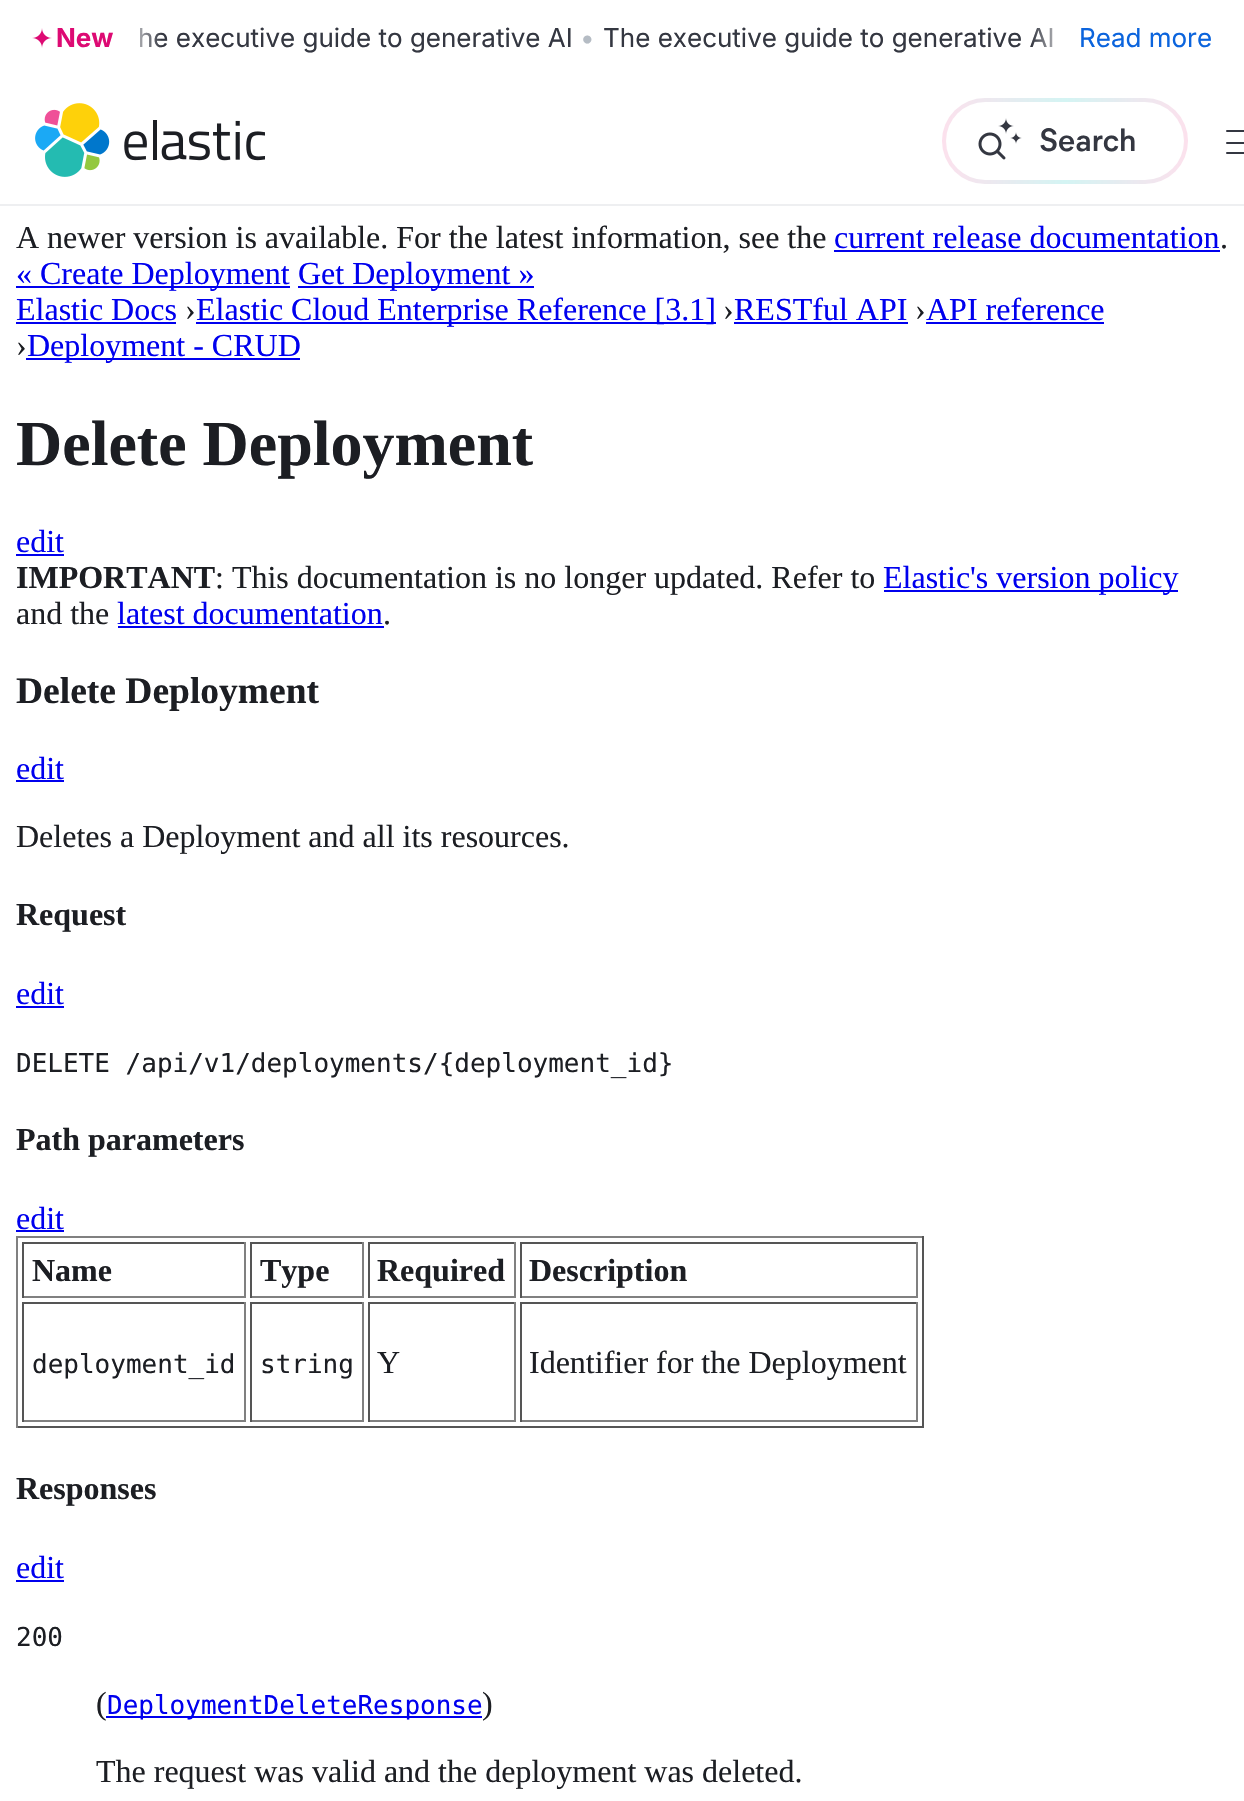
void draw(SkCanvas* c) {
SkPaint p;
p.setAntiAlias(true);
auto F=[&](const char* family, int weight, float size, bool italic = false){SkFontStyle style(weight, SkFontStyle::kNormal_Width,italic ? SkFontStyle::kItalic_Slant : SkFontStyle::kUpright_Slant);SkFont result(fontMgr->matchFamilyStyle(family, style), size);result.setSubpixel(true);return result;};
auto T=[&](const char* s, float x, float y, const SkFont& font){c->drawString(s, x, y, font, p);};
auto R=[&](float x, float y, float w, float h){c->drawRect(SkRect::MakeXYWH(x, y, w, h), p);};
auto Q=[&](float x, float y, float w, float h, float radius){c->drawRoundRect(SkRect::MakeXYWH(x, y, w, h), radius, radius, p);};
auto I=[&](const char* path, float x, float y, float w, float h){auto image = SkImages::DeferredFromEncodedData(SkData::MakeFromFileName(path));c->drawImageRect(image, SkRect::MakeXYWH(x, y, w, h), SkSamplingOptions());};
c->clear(0xffffffff);
p.setColor(0xffeeeff1);
R(0,204,1244,2);
I("1.png",32,28,20,20);
auto f1 = F("Inter",700,26);
p.setColor(0xffdd0a73);
T("New",56,47,f1);
auto f2 = F("Inter",400,26);
p.setColor(0xff343741);
T("he executive guide to generative AI",138,47,f2);
p.setColor(0xffb5bcc4);
T("•",580,47,f2);
p.setColor(0xff343741);
T("The executive guide to generative AI",603,47,f2);
{
const SkColor colors[] = {0xffffffff,0x00ffffff};
const float stops[] = {0,1};
const SkPoint ends[] = {{122,38}, {162,38}};
p.setShader(SkGradientShader::MakeLinear(ends, colors, stops, 2, SkTileMode::kClamp));
p.setAlpha(255);
}
R(140,28,21,19);
{
const SkColor colors[] = {0xffffffff,0x00ffffff};
const float stops[] = {0,1};
const SkPoint ends[] = {{1071,38}, {1031,38}};
p.setShader(SkGradientShader::MakeLinear(ends, colors, stops, 2, SkTileMode::kClamp));
p.setAlpha(255);
}
R(1032,28,21,19);
p.setShader(nullptr);
p.setColor(0xff0b64dd);
T("Read more",1079,47,f2);
I("2.png",35,103,230,74);
{
const SkColor colors[] = {0xfffce1ed,0xffd4f4f3,0xfffce1ed,0xffd4f4f3,0xfffce1ed};
const float stops[] = {0,.25,.5,.75,1};
const SkPoint ends[] = {{942,141}, {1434,141}};
p.setShader(SkGradientShader::MakeLinear(ends, colors, stops, 5, SkTileMode::kClamp));
p.setAlpha(255);
}
Q(942,98,246,86,43);
p.setShader(nullptr);
p.setColor(0xffffffff);
Q(946,102,238,78,39);
I("3.png",978,118,44,42);
auto f3 = F("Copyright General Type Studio",600,32);
p.setColor(0xff343741);
T("Search",1039,151,f3);
Q(1226,130,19,2,1);
Q(1226,142,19,2,1);
Q(1226,152,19,2,1);
auto f4 = F("Liberation Serif",400,32);
p.setColor(0xff1c1e23);
T("A newer version is available. For the latest information, see the",16,248,f4);
p.setColor(0xff0000ee);
T("current release documentation",834,248,f4);
R(834,250,386,2);
p.setColor(0xff1c1e23);
T(".",1220,248,f4);
p.setColor(0xff0000ee);
R(16,286,274,2);
T("« Create Deployment",16,284,f4);
R(298,286,236,2);
T("Get Deployment »",298,284,f4);
T("Elastic Docs",16,320,f4);
R(16,322,160,2);
p.setColor(0xff1c1e23);
T("›",185,320,f4);
p.setColor(0xff0000ee);
R(196,322,520,2);
T("Elastic Cloud Enterprise Reference [3.1]",196,320,f4);
p.setColor(0xff1c1e23);
T("›",723,320,f4);
p.setColor(0xff0000ee);
T("RESTful API",734,320,f4);
R(734,322,174,2);
p.setColor(0xff1c1e23);
T("›",915,320,f4);
p.setColor(0xff0000ee);
T("API reference",926,320,f4);
R(926,322,178,2);
p.setColor(0xff1c1e23);
T("›",16,356,f4);
p.setColor(0xff0000ee);
R(26,358,274,2);
T("Deployment - CRUD",27,356,f4);
auto f5 = F("Liberation Serif",700,64);
p.setColor(0xff1c1e23);
T("Delete Deployment",16,465,f5);
p.setColor(0xff0000ee);
T("edit",16,552,f4);
R(16,554,48,2);
auto f6 = F("Liberation Serif",700,32);
p.setColor(0xff1c1e23);
T("IMPORTANT",16,588,f6);
T(": This documentation is no longer updated. Refer to",215,588,f4);
p.setColor(0xff0000ee);
R(884,590,294,2);
T("Elastic's version policy",883,588,f4);
p.setColor(0xff1c1e23);
T("and the",16,624,f4);
p.setColor(0xff0000ee);
T("latest documentation",117,624,f4);
R(118,626,266,2);
p.setColor(0xff1c1e23);
T(".",383,624,f4);
auto f7 = F("Liberation Serif",700,37.5);
T("Delete Deployment",16,703,f7);
p.setColor(0xff0000ee);
T("edit",16,779,f4);
R(16,780,48,2);
p.setColor(0xff1c1e23);
T("Deletes a Deployment and all its resources.",16,847,f4);
T("Request",16,925,f6);
p.setColor(0xff0000ee);
T("edit",16,1004,f4);
R(16,1006,48,2);
auto f8 = F("DejaVu Sans Mono",400,26);
p.setColor(0xff1c1e23);
T("DELETE /api/v1/deployments/{deployment_id}",16,1072,f8);
T("Path parameters",16,1150,f6);
p.setColor(0xff0000ee);
T("edit",16,1229,f4);
R(16,1230,48,2);
p.setColor(0xff808080);
R(16,1236,908,2);
p.setColor(0xff555555);
R(922,1236,2,192);
R(16,1426,908,2);
p.setColor(0xff808080);
R(16,1236,2,192);
p.setColor(0xff555555);
R(22,1242,224,2);
p.setColor(0xff808080);
R(244,1242,2,56);
R(22,1296,224,2);
p.setColor(0xff555555);
R(22,1242,2,56);
p.setColor(0xff1c1e23);
T("Name",32,1281,f6);
p.setColor(0xff555555);
R(250,1242,114,2);
p.setColor(0xff808080);
R(362,1242,2,56);
R(250,1296,114,2);
p.setColor(0xff555555);
R(250,1242,2,56);
p.setColor(0xff1c1e23);
T("Type",260,1281,f6);
p.setColor(0xff555555);
R(368,1242,148,2);
p.setColor(0xff808080);
R(514,1242,2,56);
R(368,1296,148,2);
p.setColor(0xff555555);
R(368,1242,2,56);
p.setColor(0xff1c1e23);
T("Required",377,1281,f6);
p.setColor(0xff555555);
R(520,1242,398,2);
p.setColor(0xff808080);
R(916,1242,2,56);
R(520,1296,398,2);
p.setColor(0xff555555);
R(520,1242,2,56);
p.setColor(0xff1c1e23);
T("Description",529,1281,f6);
p.setColor(0xff555555);
R(22,1302,224,2);
p.setColor(0xff808080);
R(244,1302,2,120);
R(22,1420,224,2);
p.setColor(0xff555555);
R(22,1302,2,120);
p.setColor(0xff1c1e23);
T("deployment_id",32,1373,f8);
p.setColor(0xff555555);
R(250,1302,114,2);
p.setColor(0xff808080);
R(362,1302,2,120);
R(250,1420,114,2);
p.setColor(0xff555555);
R(250,1302,2,120);
p.setColor(0xff1c1e23);
T("string",260,1373,f8);
p.setColor(0xff555555);
R(368,1302,148,2);
p.setColor(0xff808080);
R(514,1302,2,120);
R(368,1420,148,2);
p.setColor(0xff555555);
R(368,1302,2,120);
p.setColor(0xff1c1e23);
T("Y",377,1373,f4);
p.setColor(0xff555555);
R(520,1302,398,2);
p.setColor(0xff808080);
R(916,1302,2,120);
R(520,1420,398,2);
p.setColor(0xff555555);
R(520,1302,2,120);
p.setColor(0xff1c1e23);
T("Identifier for the Deployment",529,1373,f4);
T("Responses",16,1499,f6);
p.setColor(0xff0000ee);
T("edit",16,1578,f4);
R(16,1580,48,2);
p.setColor(0xff1c1e23);
T("200",16,1646,f8);
T("(",96,1714,f4);
p.setColor(0xff0000ee);
R(106,1716,376,2);
T("DeploymentDeleteResponse",107,1714,f8);
p.setColor(0xff1c1e23);
T(")",482,1714,f4);
T("The request was valid and the deployment was deleted.",96,1782,f4);
}
